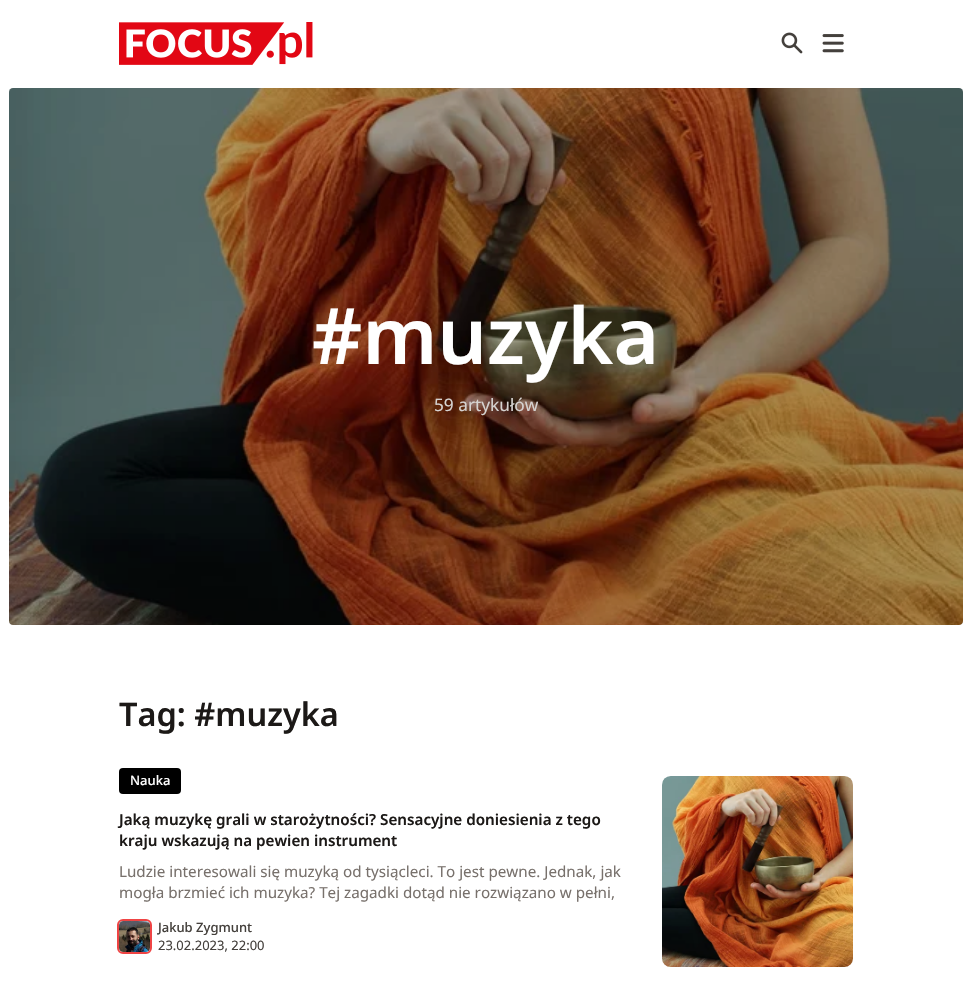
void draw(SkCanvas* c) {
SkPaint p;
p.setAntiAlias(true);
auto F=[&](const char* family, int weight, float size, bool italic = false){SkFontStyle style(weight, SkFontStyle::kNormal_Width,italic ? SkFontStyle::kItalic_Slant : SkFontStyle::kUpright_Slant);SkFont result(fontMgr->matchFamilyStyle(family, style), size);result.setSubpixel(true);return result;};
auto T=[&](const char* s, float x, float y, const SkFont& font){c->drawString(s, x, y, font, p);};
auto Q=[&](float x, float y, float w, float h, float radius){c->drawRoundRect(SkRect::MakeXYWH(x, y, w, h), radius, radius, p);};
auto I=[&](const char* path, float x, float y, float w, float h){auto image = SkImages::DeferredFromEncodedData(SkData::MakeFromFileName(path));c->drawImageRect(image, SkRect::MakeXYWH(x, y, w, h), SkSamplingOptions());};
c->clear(0xffffffff);
I("1.png",119,22,194,43);
I("2.png",781,32,22,22);
I("3.png",822,34,22,19);
I("4.png",9,88,954,537);
p.setColor(0x4d000000);
Q(9,88,954,537,4);
auto f1 = F("Noto Sans",600,78);
p.setColor(0xffffffff);
T("#muzyka",312,364,f1);
auto f2 = F("Noto Sans",400,17.25);
p.setColor(0xffd6d3d1);
T("59 artykułów",434,411,f2);
auto f3 = F("Noto Sans",600,32.5);
p.setColor(0xff1c1917);
T("Tag: #muzyka",119,726,f3);
p.setColor(0xff000000);
Q(119,768,62,26,4);
auto f4 = F("Noto Sans",500,13);
p.setColor(0xffffffff);
T("Nauka",130,785,f4);
auto f5 = F("Noto Sans",600,15.2);
p.setColor(0xff1c1917);
T("Jaką muzykę grali w starożytności? Sensacyjne doniesienia z tego",119,825,f5);
T("kraju wskazują na pewien instrument",119,846,f5);
auto f6 = F("Noto Sans",400,15.2);
p.setColor(0xff78716c);
T("Ludzie interesowali się muzyką od tysiącleci. To jest pewne. Jednak, jak",119,877,f6);
T("mogła brzmieć ich muzyka? Tej zagadki dotąd nie rozwiązano w pełni,",119,898,f6);
p.setStroke(true);
p.setStrokeWidth(2);
p.setColor(0xffef4444);
c->drawRoundRect(SkRect::MakeXYWH(118,920,33,33),5,5,p);
I("5.png",119,921,31,31);
p.setStroke(false);
p.setColor(0xff44403c);
T("Jakub Zygmunt",158,932,f4);
auto f7 = F("Noto Sans",400,13);
T("23.02.2023, 22:00",158,950,f7);
I("6.png",662,776,191,191);
}
